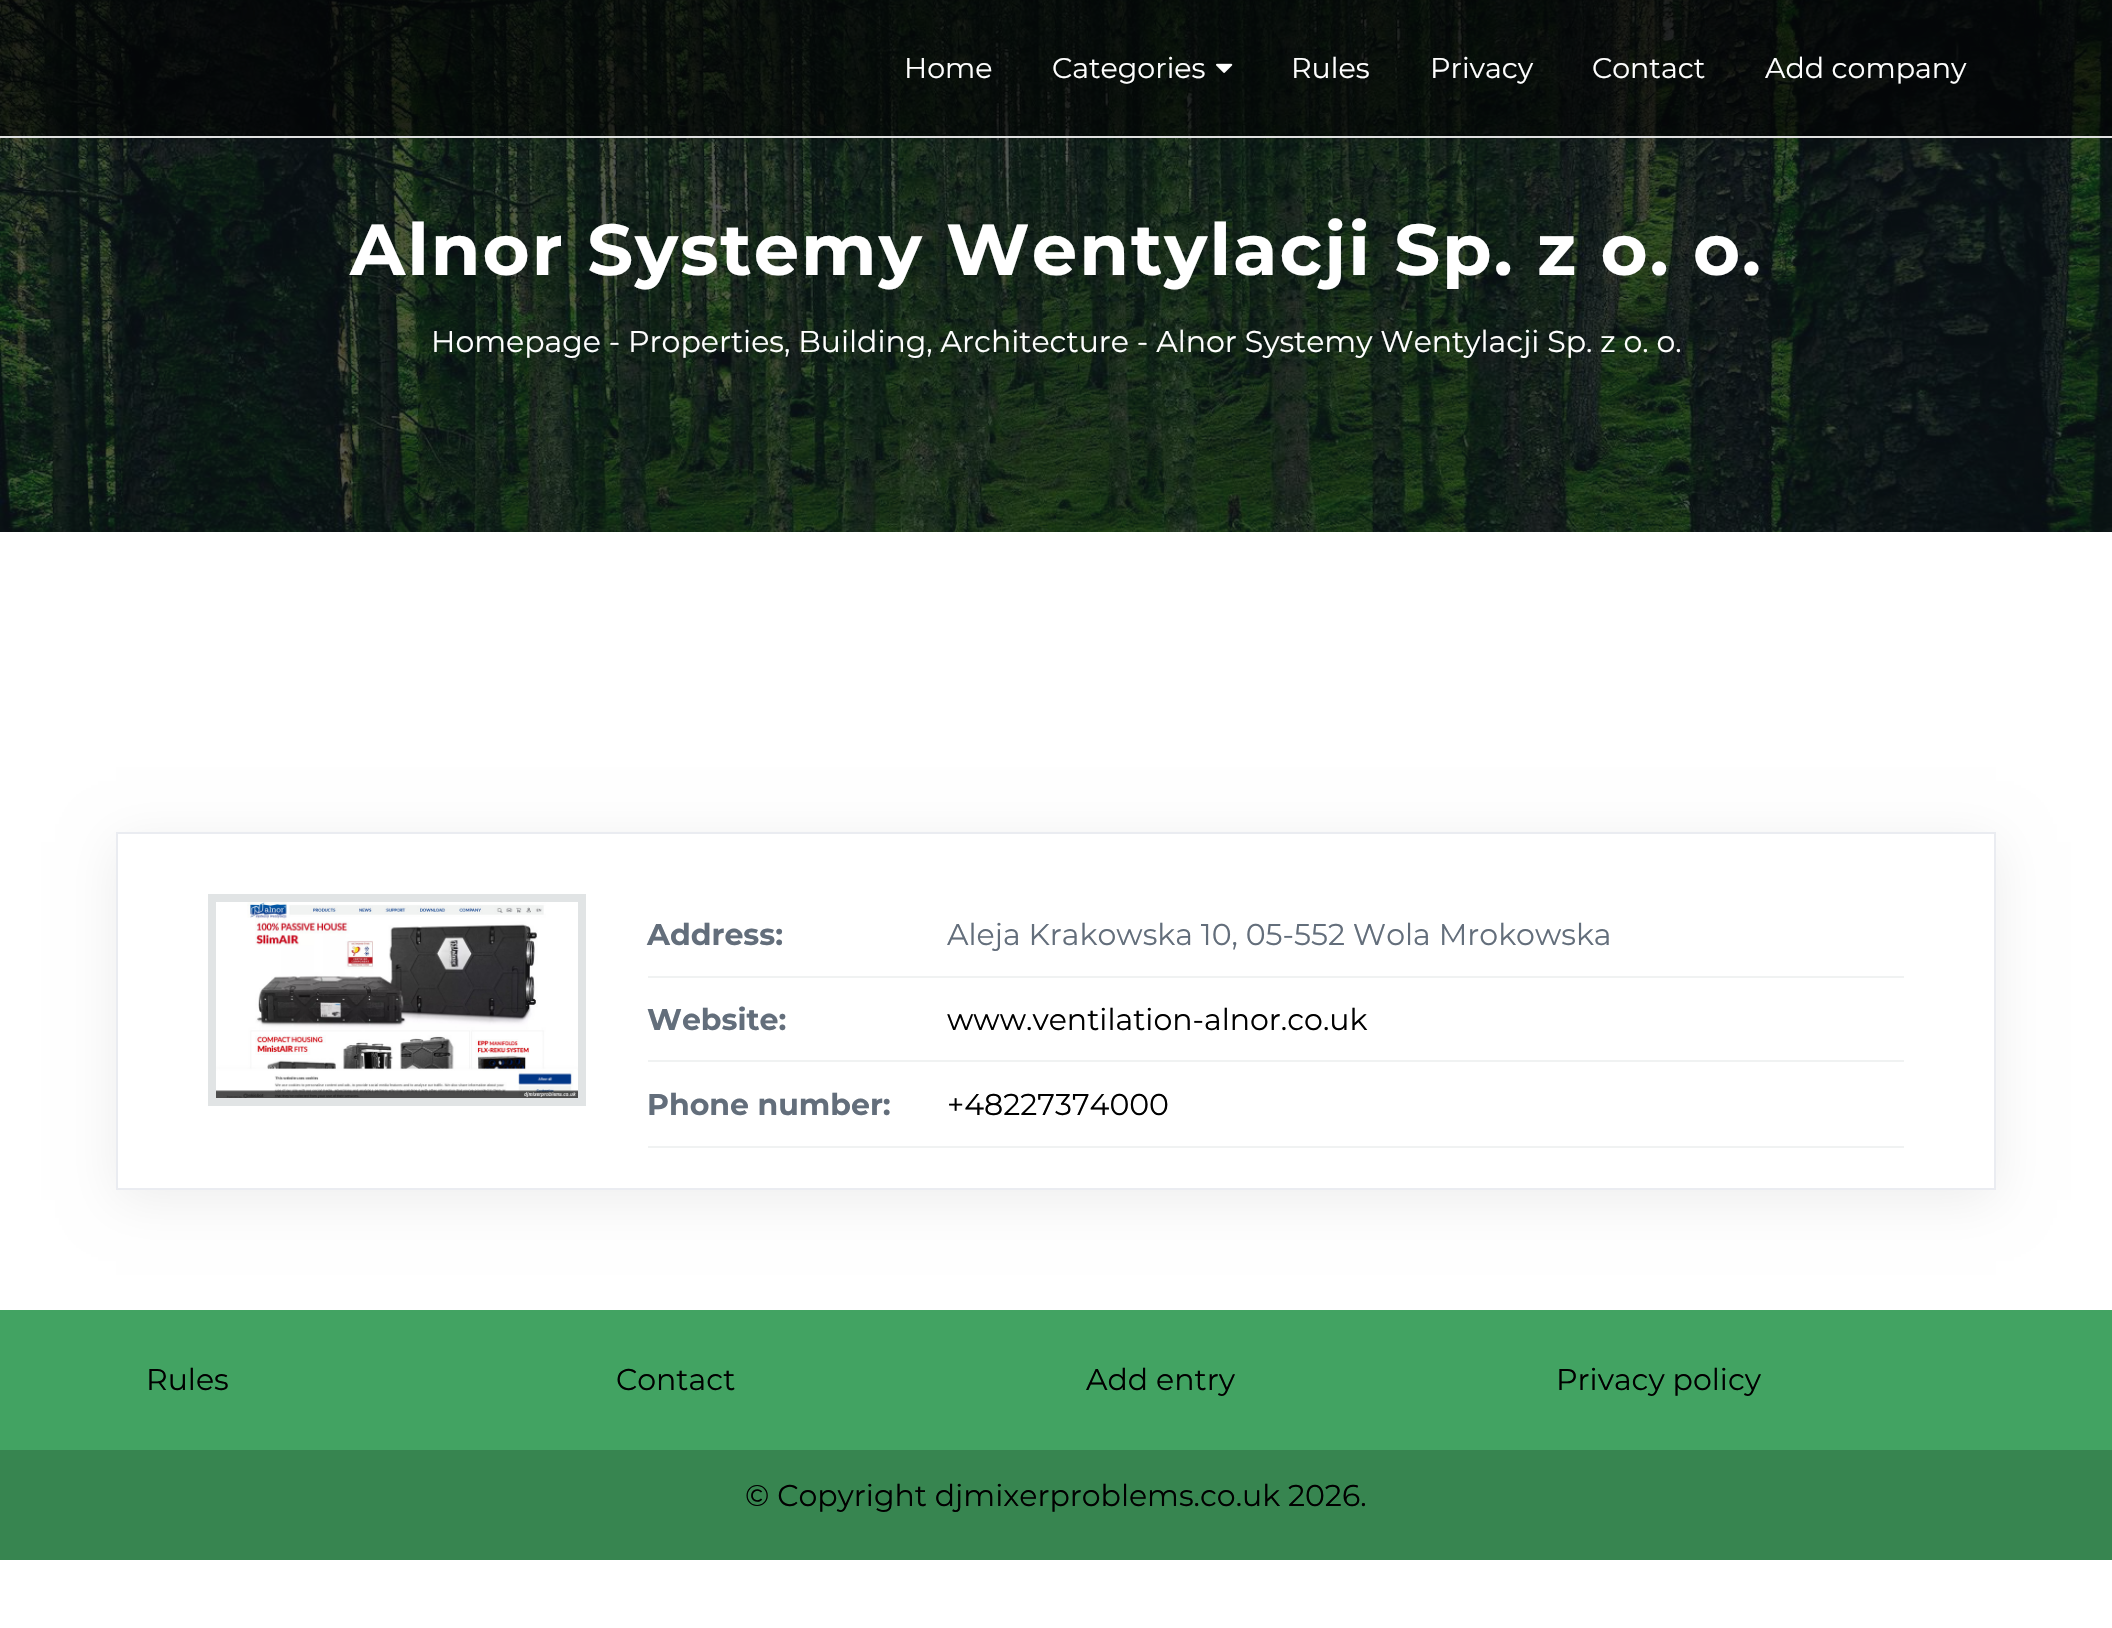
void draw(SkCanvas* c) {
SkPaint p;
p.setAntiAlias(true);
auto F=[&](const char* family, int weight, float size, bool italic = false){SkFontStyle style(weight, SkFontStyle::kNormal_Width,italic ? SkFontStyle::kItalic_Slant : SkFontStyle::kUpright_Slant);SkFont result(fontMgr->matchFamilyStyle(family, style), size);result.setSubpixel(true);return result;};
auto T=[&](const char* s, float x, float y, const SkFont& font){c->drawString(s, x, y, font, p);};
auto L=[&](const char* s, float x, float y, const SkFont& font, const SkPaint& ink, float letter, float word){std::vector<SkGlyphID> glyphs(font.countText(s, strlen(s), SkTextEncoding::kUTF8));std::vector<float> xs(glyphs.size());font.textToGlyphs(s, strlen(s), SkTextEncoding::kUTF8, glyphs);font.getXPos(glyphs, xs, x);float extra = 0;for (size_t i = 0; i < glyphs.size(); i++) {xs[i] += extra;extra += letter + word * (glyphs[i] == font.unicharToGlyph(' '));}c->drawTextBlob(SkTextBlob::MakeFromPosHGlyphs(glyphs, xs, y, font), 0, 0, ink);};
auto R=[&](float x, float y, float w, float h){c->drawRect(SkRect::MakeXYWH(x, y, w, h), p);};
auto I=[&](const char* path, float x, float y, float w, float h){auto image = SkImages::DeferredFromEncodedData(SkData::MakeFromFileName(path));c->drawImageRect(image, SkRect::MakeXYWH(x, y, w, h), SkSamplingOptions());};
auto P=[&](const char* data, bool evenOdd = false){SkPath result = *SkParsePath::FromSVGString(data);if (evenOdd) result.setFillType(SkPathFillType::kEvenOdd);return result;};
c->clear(0xffffffff);
I("2.png",0,0,2112,532);
p.setColor(0x99000000);
R(0,0,2112,136);
p.setColor(0xffe0e0e0);
R(0,136,2112,2);
auto f1 = F("Montserrat",400,28.5);
p.setColor(0xffffffff);
T("Home",904,78,f1);
T("Categories",1052,78,f1);
I("1.png",1216,63,17,10);
T("Rules",1291,78,f1);
T("Privacy",1430,78,f1);
T("Contact",1592,78,f1);
T("Add company",1765,78,f1);
auto f2 = F("Montserrat",700,72);
L("Alnor Systemy Wentylacji Sp. z o. o.",350,275,f2,p,2,0);
auto f3 = F("Montserrat",400,30);
T("Homepage - Properties, Building, Architecture - Alnor Systemy Wentylacji Sp. z o. o.",431,352,f3);
c->save();
c->clipPath(P("M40 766h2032v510h-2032zm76 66h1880v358h-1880z",true),true);
p.setColor(0x12000000);
p.setMaskFilter(SkMaskFilter::MakeBlur(kNormal_SkBlurStyle, 25));
c->drawRect(SkRect::MakeXYWH(116,842,1880,358),p);
p.setMaskFilter(nullptr);
c->restore();
p.setStroke(true);
p.setStrokeWidth(2);
p.setColor(0xffeaecf1);
c->drawRect(SkRect::MakeXYWH(117,833,1878,356),p);
p.setStrokeWidth(8);
p.setColor(0xffe1e4e5);
c->drawRect(SkRect::MakeXYWH(212,898,370,204),p);
I("3.png",216,902,362,196);
p.setStroke(false);
p.setColor(0xfff0f2f2);
R(648,976,1256,2);
auto f4 = F("Montserrat",700,30);
p.setColor(0xff636e7b);
T("Address:",647,945,f4);
T("Aleja Krakowska 10, 05-552 Wola Mrokowska",947,945,f3);
p.setColor(0xfff0f2f2);
R(648,1060,1256,2);
p.setColor(0xff636e7b);
T("Website:",647,1030,f4);
p.setColor(0xff000000);
T("www.ventilation-alnor.co.uk",947,1030,f3);
p.setColor(0xfff0f2f2);
R(648,1146,1256,2);
p.setColor(0xff636e7b);
T("Phone number:",647,1115,f4);
p.setColor(0xff000000);
T("+48227374000",947,1115,f3);
p.setColor(0xff42a362);
R(0,1310,2112,140);
p.setColor(0xff000000);
T("Rules",146,1390,f3);
T("Contact",616,1390,f3);
T("Add entry",1086,1390,f3);
T("Privacy policy",1556,1390,f3);
p.setColor(0xff378550);
R(0,1450,2112,110);
p.setColor(0xff000000);
T("© Copyright djmixerproblems.co.uk 2026.",745,1506,f3);
}
